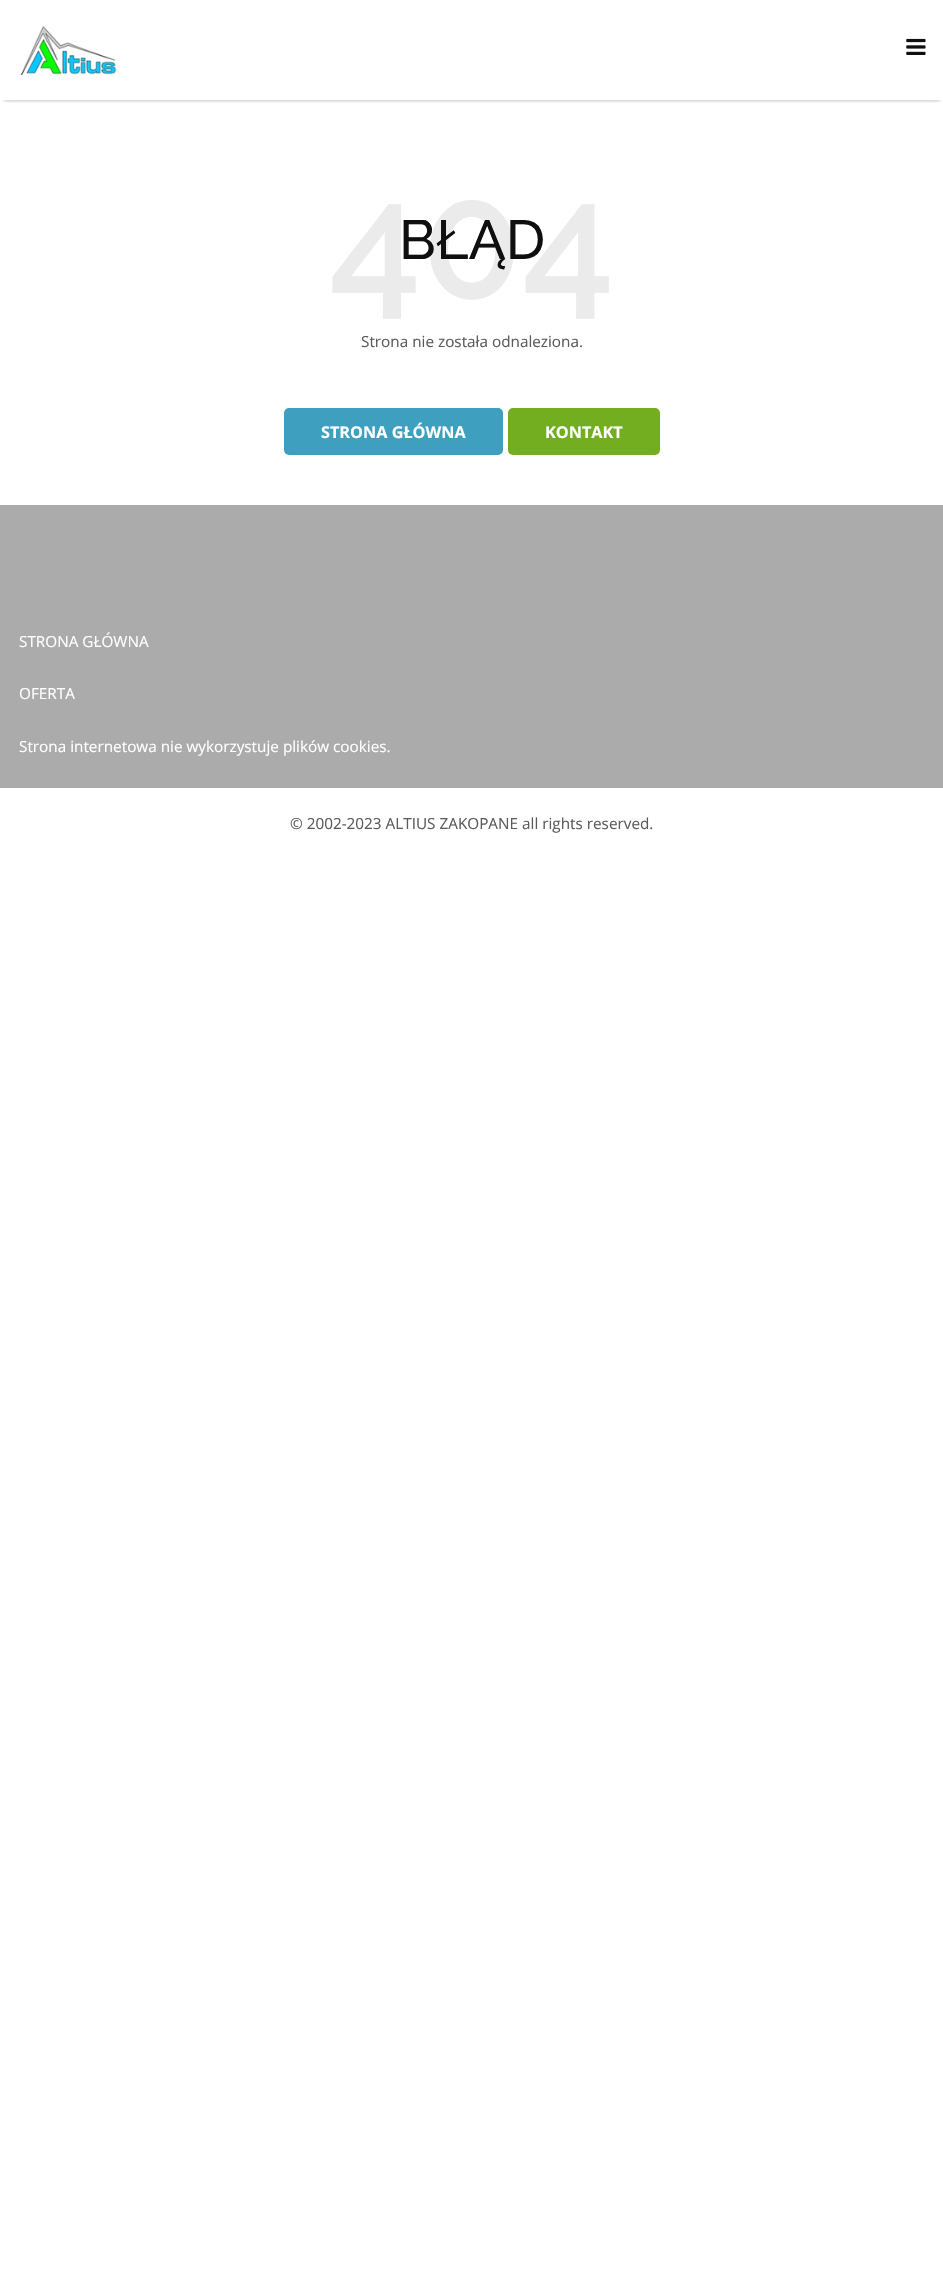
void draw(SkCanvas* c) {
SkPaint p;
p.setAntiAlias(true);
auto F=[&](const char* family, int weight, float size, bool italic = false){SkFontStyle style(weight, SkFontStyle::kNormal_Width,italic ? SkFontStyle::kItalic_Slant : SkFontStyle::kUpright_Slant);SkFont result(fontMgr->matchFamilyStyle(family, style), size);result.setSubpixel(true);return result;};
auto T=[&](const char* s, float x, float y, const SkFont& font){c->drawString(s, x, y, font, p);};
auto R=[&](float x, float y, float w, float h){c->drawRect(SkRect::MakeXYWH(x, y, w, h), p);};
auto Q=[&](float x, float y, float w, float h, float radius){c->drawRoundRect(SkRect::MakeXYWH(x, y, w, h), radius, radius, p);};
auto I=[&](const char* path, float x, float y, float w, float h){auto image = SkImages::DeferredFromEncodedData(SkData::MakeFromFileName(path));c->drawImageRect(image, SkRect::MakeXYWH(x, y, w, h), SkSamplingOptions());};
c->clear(0xffffffff);
c->save();
c->clipRect(SkRect::MakeXYWH(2,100,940,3));
p.setColor(0x59000000);
p.setMaskFilter(SkMaskFilter::MakeBlur(kNormal_SkBlurStyle, 2));
c->drawRect(SkRect::MakeXYWH(4,8,936,92),p);
p.setMaskFilter(nullptr);
c->restore();
I("1.png",20,26,97,49);
I("2.png",906,38,20,17);
auto f1 = F("Raleway",600,164);
p.setColor(0xffebebeb);
T("404",329,298,f1);
auto f2 = F("Raleway",500,55);
p.setColor(0xff0f0f0f);
T("BŁĄD",399,259,f2);
auto f3 = F("Open Sans",400,15.3);
p.setColor(0xff5b5b5b);
T("Strona nie została odnaleziona.",361,347,f3);
p.setColor(0xff3e9fbe);
Q(284,408,219,47,5);
auto f4 = F("Open Sans",700,16.25);
p.setColor(0xffffffff);
T("STRONA GŁÓWNA",321,438,f4);
p.setColor(0xff73ae20);
Q(508,408,152,47,5);
p.setColor(0xffffffff);
T("KONTAKT",545,438,f4);
p.setColor(0xffababab);
R(0,505,943,283);
p.setColor(0xffffffff);
T("STRONA GŁÓWNA",19,647,f3);
T("OFERTA",19,699,f3);
T("Strona internetowa nie wykorzystuje plików cookies.",19,752,f3);
p.setColor(0xff5b5b5b);
T("© 2002-2023 ALTIUS ZAKOPANE all rights reserved.",290,829,f3);
}
